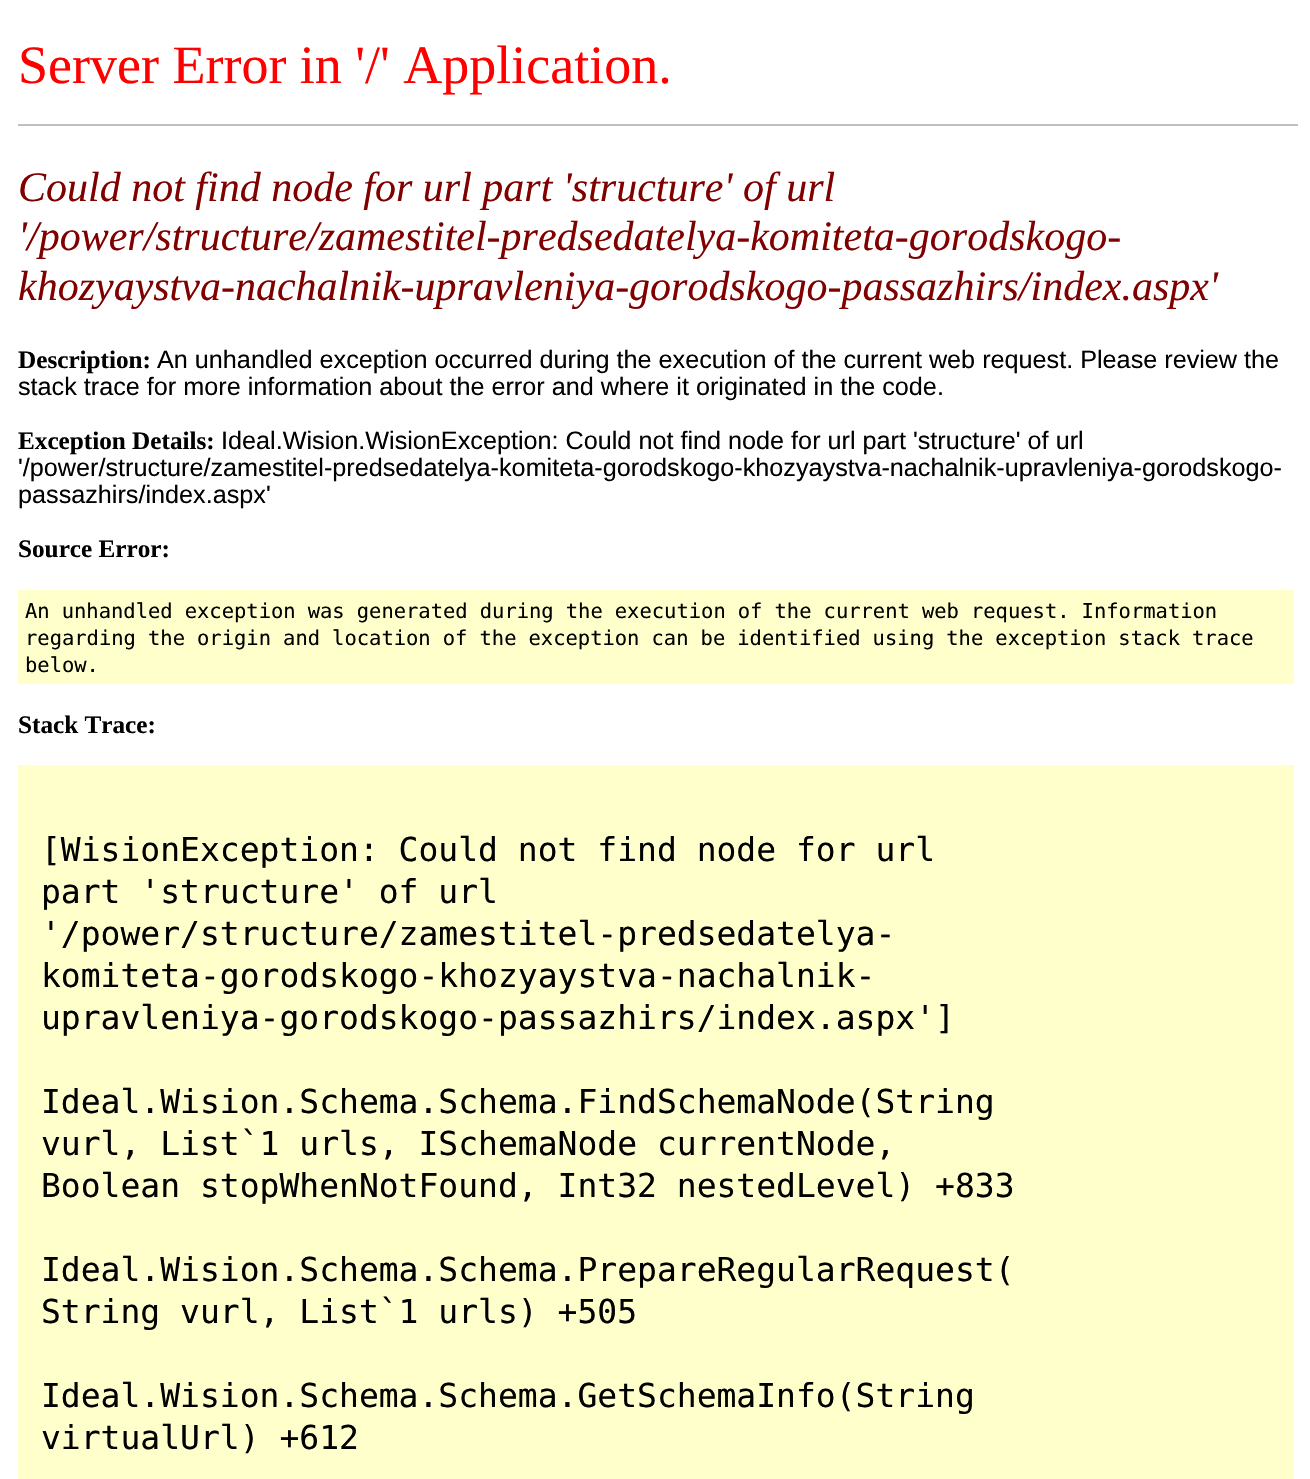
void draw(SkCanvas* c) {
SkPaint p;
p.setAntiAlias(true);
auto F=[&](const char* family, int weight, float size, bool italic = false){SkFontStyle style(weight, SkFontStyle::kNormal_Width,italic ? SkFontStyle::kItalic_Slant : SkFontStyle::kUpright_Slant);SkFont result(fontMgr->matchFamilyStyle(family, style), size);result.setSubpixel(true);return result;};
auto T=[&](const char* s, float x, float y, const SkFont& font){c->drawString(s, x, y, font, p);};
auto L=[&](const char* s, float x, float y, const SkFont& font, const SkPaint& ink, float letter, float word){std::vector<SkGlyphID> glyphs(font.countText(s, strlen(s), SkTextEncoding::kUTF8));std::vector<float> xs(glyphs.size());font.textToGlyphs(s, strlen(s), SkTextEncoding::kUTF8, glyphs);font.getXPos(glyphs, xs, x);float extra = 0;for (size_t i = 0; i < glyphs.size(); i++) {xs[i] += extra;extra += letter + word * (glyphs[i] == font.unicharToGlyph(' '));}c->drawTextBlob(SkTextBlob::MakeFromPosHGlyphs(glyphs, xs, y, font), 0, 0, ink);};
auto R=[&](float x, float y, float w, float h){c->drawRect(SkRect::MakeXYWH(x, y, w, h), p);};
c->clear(0xffffffff);
auto f1 = F("Liberation Serif",400,54);
p.setColor(0xffff0000);
T("Server Error in '/' Application.",18,83,f1);
p.setColor(0xffc0c0c0);
R(18,124,1280,2);
auto f2 = F("Liberation Serif",400,42,true);
p.setColor(0xff800000);
T("Could not find node for url part 'structure' of url",18,201,f2);
T("'/power/structure/zamestitel-predsedatelya-komiteta-gorodskogo-",18,250,f2);
T("khozyaystva-nachalnik-upravleniya-gorodskogo-passazhirs/index.aspx'",18,300,f2);
auto f3 = F("Liberation Serif",700,25.2);
p.setColor(0xff000000);
T("Description:",18,368,f3);
auto f4 = F("Liberation Sans",400,25.2);
T("An unhandled exception occurred during the execution of the current web request. Please review the",157,368,f4);
T("stack trace for more information about the error and where it originated in the code.",18,395,f4);
T("Exception Details:",18,449,f3);
T("Ideal.Wision.WisionException: Could not find node for url part 'structure' of url",221,449,f4);
T("'/power/structure/zamestitel-predsedatelya-komiteta-gorodskogo-khozyaystva-nachalnik-upravleniya-gorodskogo-",18,476,f4);
T("passazhirs/index.aspx'",18,503,f4);
T("Source Error:",18,557,f3);
p.setColor(0xffffffcc);
R(18,590,1276,94);
auto f5 = F("DejaVu Sans Mono",400,20.47);
p.setColor(0xff000000);
L("An unhandled exception was generated during the execution of the current web request. Information",25,618,f5,p,0,-.25);
L("regarding the origin and location of the exception can be identified using the exception stack trace",25,645,f5,p,0,-.25);
T("below.",25,672,f5);
T("Stack Trace:",18,733,f3);
p.setColor(0xffffffcc);
R(18,765,1276,714);
auto f6 = F("DejaVu Sans Mono",400,33);
p.setColor(0xff000000);
T("[WisionException: Could not find node for url",41,861,f6);
T("part 'structure' of url",41,903,f6);
T("'/power/structure/zamestitel-predsedatelya-",41,945,f6);
T("komiteta-gorodskogo-khozyaystva-nachalnik-",41,987,f6);
T("upravleniya-gorodskogo-passazhirs/index.aspx']",41,1029,f6);
T("Ideal.Wision.Schema.Schema.FindSchemaNode(String",41,1113,f6);
T("vurl, List`1 urls, ISchemaNode currentNode,",41,1155,f6);
T("Boolean stopWhenNotFound, Int32 nestedLevel) +833",41,1197,f6);
T("Ideal.Wision.Schema.Schema.PrepareRegularRequest(",41,1281,f6);
T("String vurl, List`1 urls) +505",41,1323,f6);
T("Ideal.Wision.Schema.Schema.GetSchemaInfo(String",41,1407,f6);
T("virtualUrl) +612",41,1449,f6);
}
